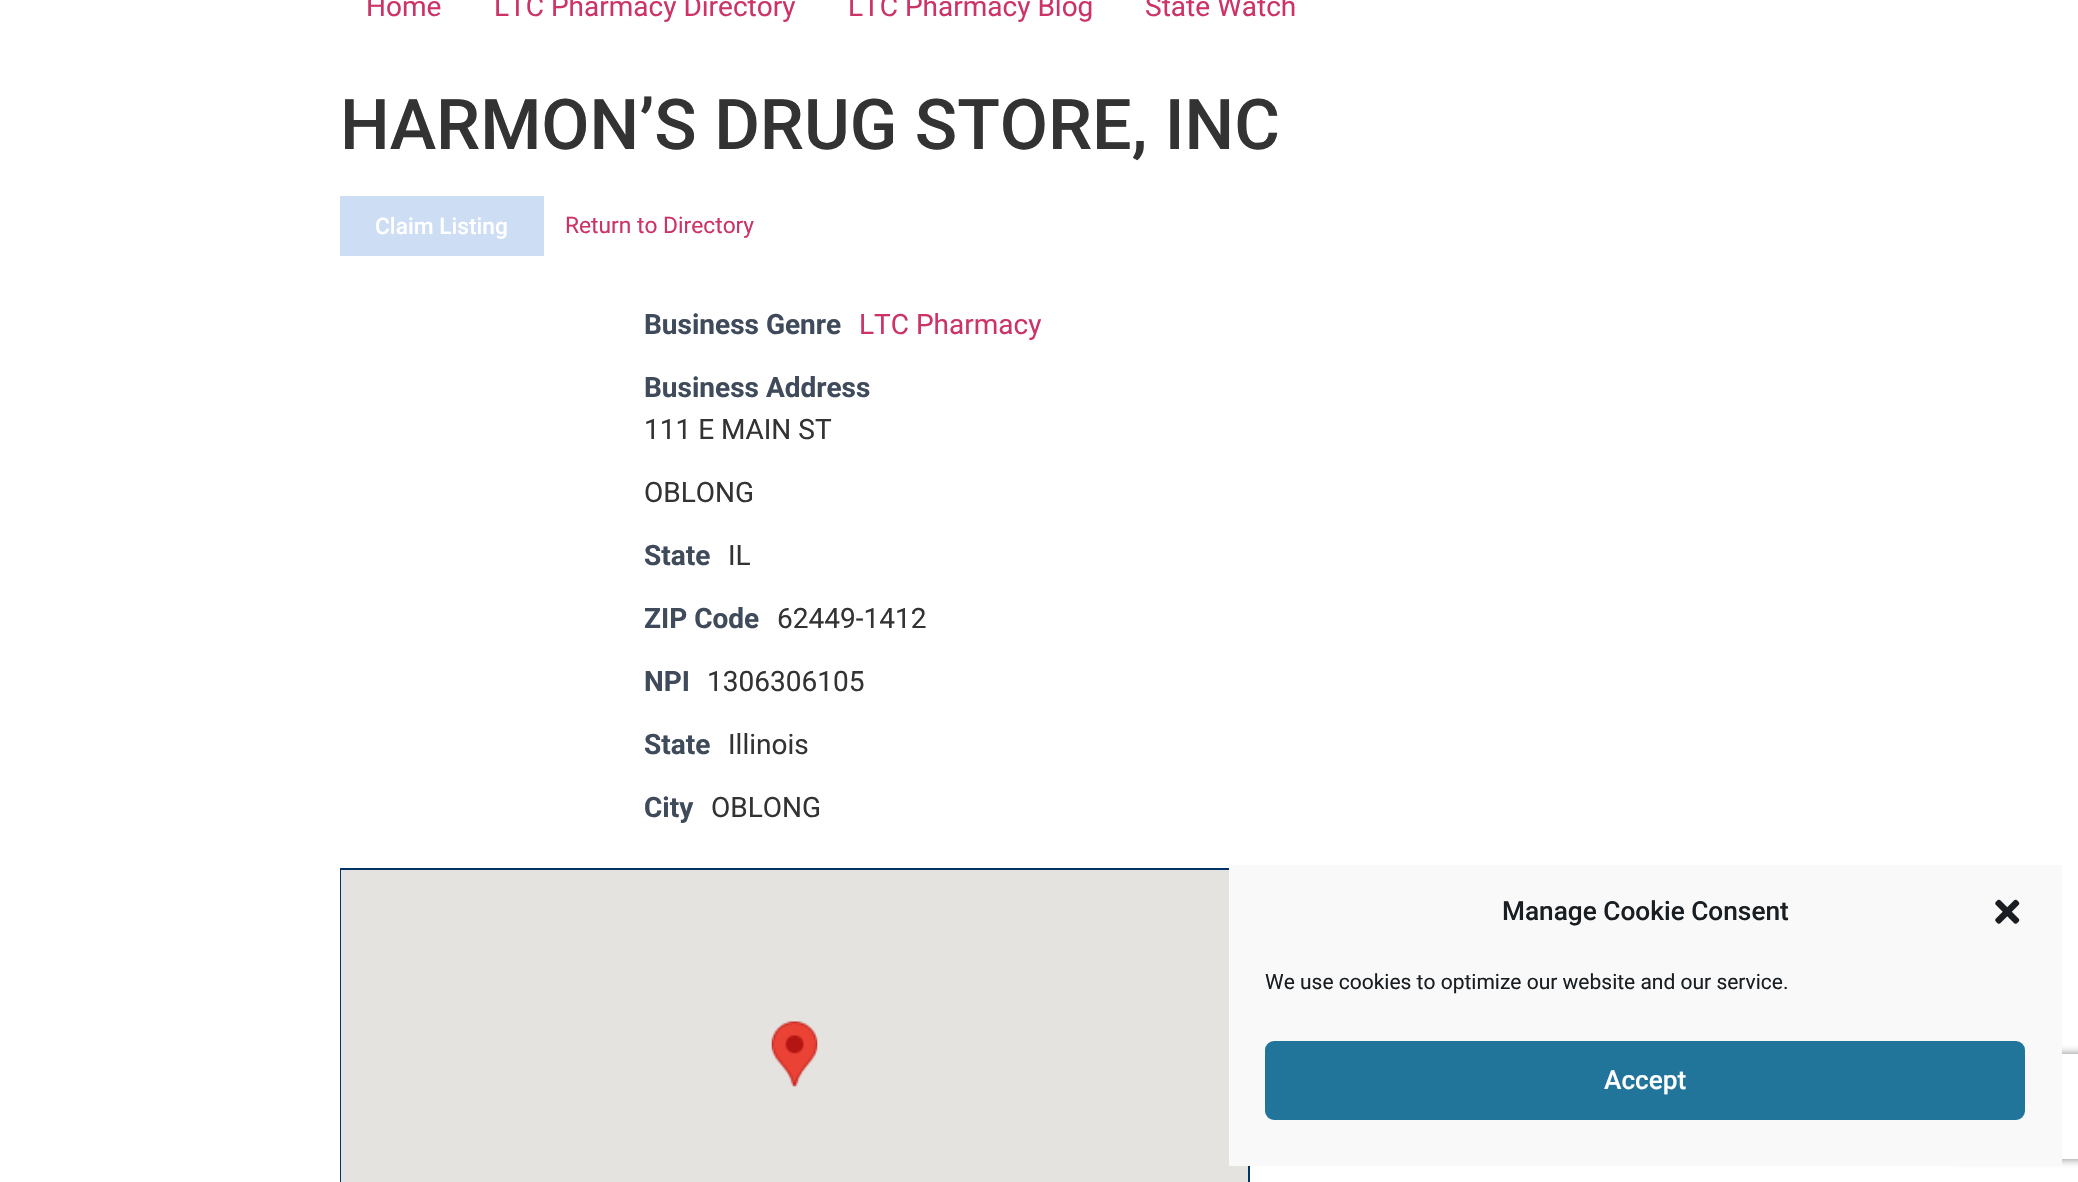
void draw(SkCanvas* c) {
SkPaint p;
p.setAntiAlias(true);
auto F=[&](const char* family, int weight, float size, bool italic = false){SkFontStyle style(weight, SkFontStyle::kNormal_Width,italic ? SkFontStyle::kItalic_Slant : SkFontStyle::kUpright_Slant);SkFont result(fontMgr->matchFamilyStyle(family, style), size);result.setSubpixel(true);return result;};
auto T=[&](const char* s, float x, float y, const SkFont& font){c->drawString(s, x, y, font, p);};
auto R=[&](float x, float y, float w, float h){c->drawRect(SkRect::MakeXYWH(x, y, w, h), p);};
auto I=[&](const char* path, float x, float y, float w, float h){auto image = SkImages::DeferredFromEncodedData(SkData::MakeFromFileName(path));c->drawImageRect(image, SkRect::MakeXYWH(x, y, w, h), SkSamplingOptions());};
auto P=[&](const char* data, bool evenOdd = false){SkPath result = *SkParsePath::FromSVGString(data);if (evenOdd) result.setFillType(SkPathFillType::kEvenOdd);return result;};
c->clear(0xffffffff);
auto f1 = F("Roboto",400,28);
p.setColor(0xffcc3366);
T("Home",366,16,f1);
T("LTC Pharmacy Directory",494,16,f1);
T("LTC Pharmacy Blog",848,16,f1);
T("State Watch",1145,16,f1);
auto f2 = F("Roboto",500,70);
p.setColor(0xff333333);
T("HARMON’S DRUG STORE, INC",340,149,f2);
p.setColor(0xffcddef4);
R(340,196,204,60);
auto f3 = F("Roboto",500,22.75);
p.setColor(0xffffffff);
T("Claim Listing",375,234,f3);
auto f4 = F("Roboto",400,22.75);
p.setColor(0xffcc3366);
T("Return to Directory",565,233,f4);
auto f5 = F("Roboto",700,28);
p.setColor(0xff3f4b5b);
T("Business Genre",644,334,f5);
p.setColor(0xffcc3366);
T("LTC Pharmacy",859,334,f1);
p.setColor(0xff3f4b5b);
T("Business Address",644,397,f5);
p.setColor(0xff333333);
T("111 E MAIN ST",644,439,f1);
T("OBLONG",644,502,f1);
p.setColor(0xff3f4b5b);
T("State",644,565,f5);
p.setColor(0xff333333);
T("IL",728,565,f1);
p.setColor(0xff3f4b5b);
T("ZIP Code",644,628,f5);
p.setColor(0xff333333);
T("62449-1412",777,628,f1);
p.setColor(0xff3f4b5b);
T("NPI",644,691,f5);
p.setColor(0xff333333);
T("1306306105",707,691,f1);
p.setColor(0xff3f4b5b);
T("State",644,754,f5);
p.setColor(0xff333333);
T("Illinois",728,754,f1);
p.setColor(0xff3f4b5b);
T("City",644,817,f5);
p.setColor(0xff333333);
T("OBLONG",711,817,f1);
p.setStroke(true);
p.setStrokeWidth(2);
p.setColor(0xff003366);
c->drawRect(SkRect::MakeXYWH(341,869,908,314),p);
p.setStroke(false);
p.setColor(0xffe5e3df);
R(341,870,907,312);
I("1.png",771,1021,47,66);
c->save();
c->clipPath(P("M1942 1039h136v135h-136zm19 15h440c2 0 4 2 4 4v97c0 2-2 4-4 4h-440c-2 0-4-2-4-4v-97c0-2 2-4 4-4z",true),true);
p.setColor(0xff808080);
p.setMaskFilter(SkMaskFilter::MakeBlur(kNormal_SkBlurStyle, 4.5));
c->drawRoundRect(SkRect::MakeXYWH(1957,1054,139,105),4,4,p);
p.setMaskFilter(nullptr);
c->restore();
p.setColor(0xfff9f9f9);
R(1229,865,833,301);
auto f6 = F("Roboto",500,26.25);
p.setColor(0xff191e23);
T("Manage Cookie Consent",1502,920,f6);
I("2.png",1995,899,25,25);
auto f7 = F("Roboto",400,21);
T("We use cookies to optimize our website and our service.",1265,989,f7);
p.setColor(0xff21759b);
c->drawRoundRect(SkRect::MakeXYWH(1266,1042,758,77),8,8,p);
p.setStroke(true);
c->drawRoundRect(SkRect::MakeXYWH(1266,1042,758,77),8,8,p);
p.setStroke(false);
p.setColor(0xffffffff);
T("Accept",1604,1089,f6);
}
